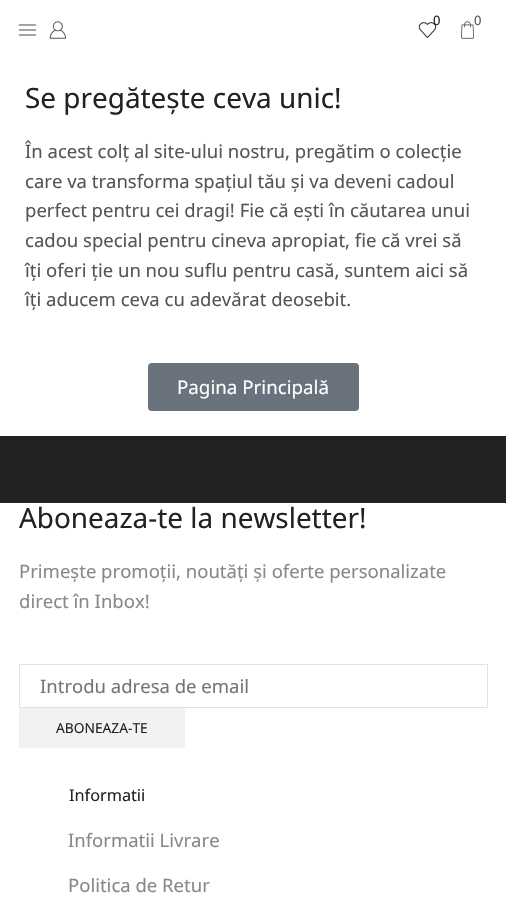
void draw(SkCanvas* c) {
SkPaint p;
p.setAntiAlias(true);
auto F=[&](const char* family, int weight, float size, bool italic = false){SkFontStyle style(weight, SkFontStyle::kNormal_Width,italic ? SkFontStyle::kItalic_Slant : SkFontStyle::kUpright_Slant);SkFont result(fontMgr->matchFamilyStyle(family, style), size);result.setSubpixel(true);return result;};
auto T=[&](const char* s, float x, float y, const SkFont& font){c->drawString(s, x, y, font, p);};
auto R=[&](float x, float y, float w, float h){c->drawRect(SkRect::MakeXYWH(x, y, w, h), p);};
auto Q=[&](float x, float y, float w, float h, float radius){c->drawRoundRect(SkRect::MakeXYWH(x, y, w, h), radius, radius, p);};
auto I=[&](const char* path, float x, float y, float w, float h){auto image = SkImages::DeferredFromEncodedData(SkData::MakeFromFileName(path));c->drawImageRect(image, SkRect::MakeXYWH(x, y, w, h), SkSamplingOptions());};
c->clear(0xffffffff);
I("1.png",18,24,19,12);
I("2.png",49,21,17,18);
I("3.png",418,22,19,16);
auto f1 = F("Noto Sans",400,13);
p.setColor(0xff222222);
T("0",433,25,f1);
I("4.png",461,21,13,18);
p.setColor(0xff555555);
T("0",474,25,f1);
auto f2 = F("Noto Sans",400,27.9);
p.setColor(0xff222222);
T("Se pregătește ceva unic!",25,108,f2);
auto f3 = F("Noto Sans",400,18.5);
p.setColor(0xff555555);
T("În acest colț al site-ului nostru, pregătim o colecție",25,158,f3);
T("care va transforma spațiul tău și va deveni cadoul",25,188,f3);
T("perfect pentru cei dragi! Fie că ești în căutarea unui",25,217,f3);
T("cadou special pentru cineva apropiat, fie că vrei să",25,247,f3);
T("îți oferi ție un nou suflu pentru casă, suntem aici să",25,277,f3);
T("îți aducem ceva cu adevărat deosebit.",25,306,f3);
p.setColor(0xff69727d);
Q(148,363,211,48,4);
auto f4 = F("Noto Sans",400,18.75);
p.setColor(0xffffffff);
T("Pagina Principală",177,394,f4);
p.setColor(0xff222222);
R(0,436,506,67);
T("Aboneaza-te la newsletter!",19,528,f2);
p.setColor(0xff888888);
T("Primește promoții, noutăți și oferte personalizate",19,578,f3);
T("direct în Inbox!",19,608,f3);
p.setStroke(true);
p.setStrokeWidth(1);
p.setColor(0xffe1e1e1);
c->drawRect(SkRect::MakeXYWH(19.5,664.5,468,43),p);
p.setStroke(false);
p.setColor(0xff757575);
T("Introdu adresa de email",40,693,f3);
p.setColor(0xfff2f2f2);
R(19,708,166,40);
auto f5 = F("Noto Sans",400,13.75);
p.setColor(0xff222222);
T("ABONEAZA-TE",56,733,f5);
auto f6 = F("Noto Sans",400,16.25);
T("Informatii",69,801,f6);
p.setColor(0xff888888);
T("Informatii Livrare",68,847,f3);
T("Politica de Retur",68,892,f3);
}
